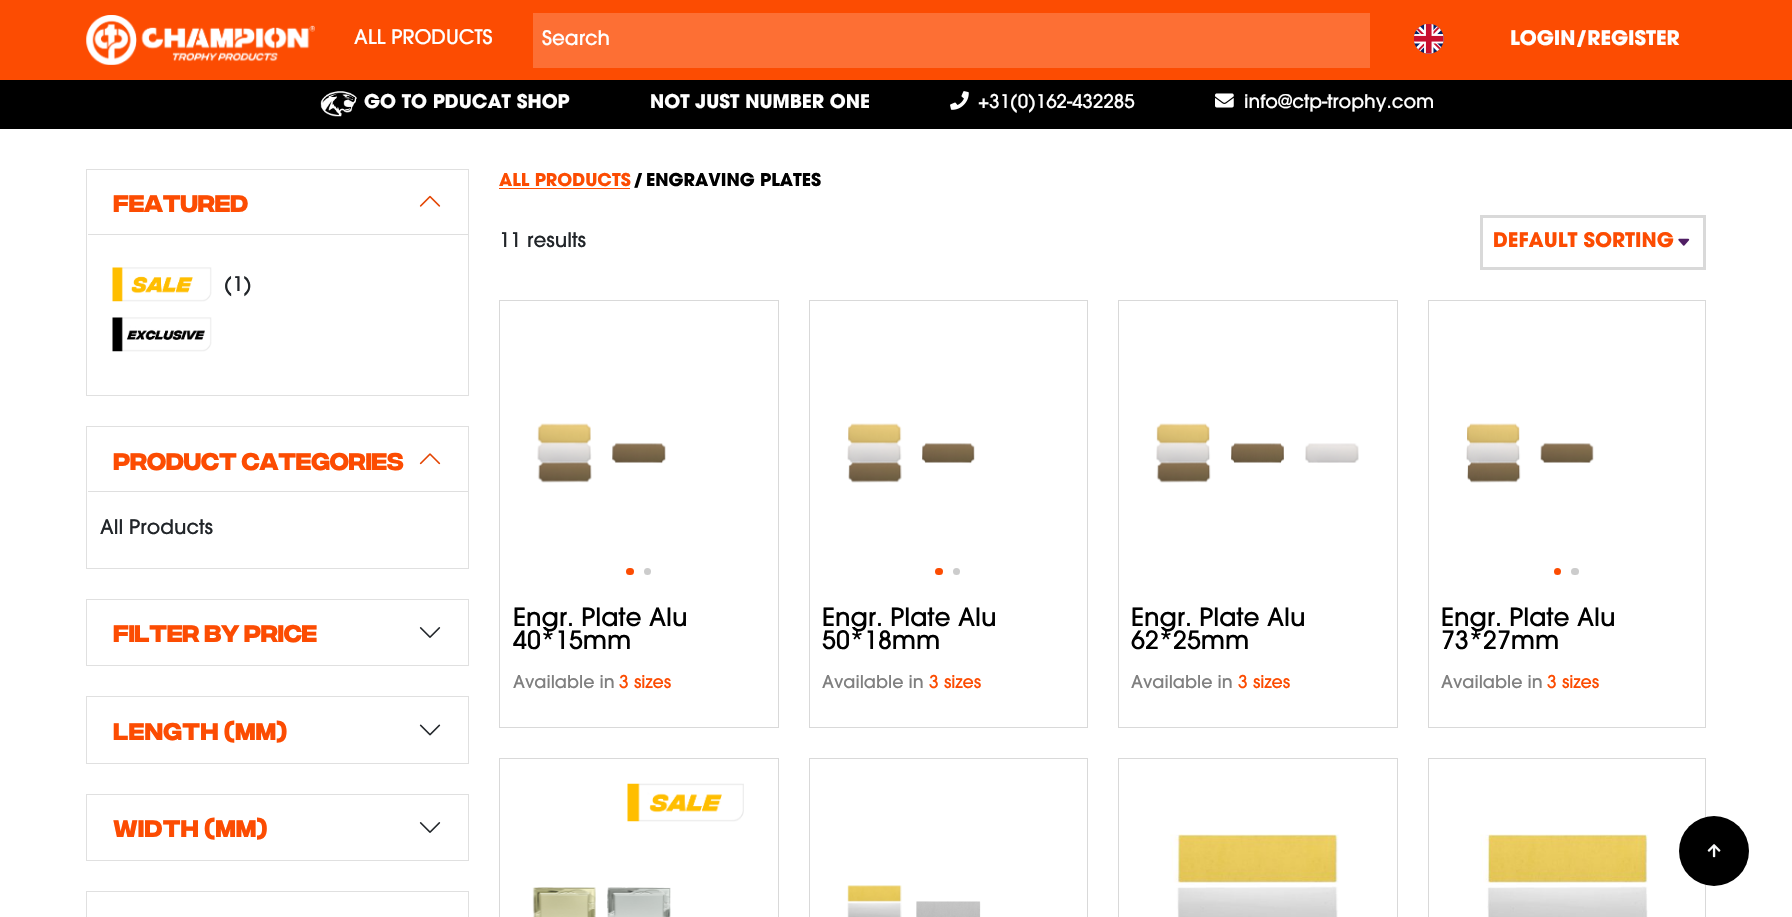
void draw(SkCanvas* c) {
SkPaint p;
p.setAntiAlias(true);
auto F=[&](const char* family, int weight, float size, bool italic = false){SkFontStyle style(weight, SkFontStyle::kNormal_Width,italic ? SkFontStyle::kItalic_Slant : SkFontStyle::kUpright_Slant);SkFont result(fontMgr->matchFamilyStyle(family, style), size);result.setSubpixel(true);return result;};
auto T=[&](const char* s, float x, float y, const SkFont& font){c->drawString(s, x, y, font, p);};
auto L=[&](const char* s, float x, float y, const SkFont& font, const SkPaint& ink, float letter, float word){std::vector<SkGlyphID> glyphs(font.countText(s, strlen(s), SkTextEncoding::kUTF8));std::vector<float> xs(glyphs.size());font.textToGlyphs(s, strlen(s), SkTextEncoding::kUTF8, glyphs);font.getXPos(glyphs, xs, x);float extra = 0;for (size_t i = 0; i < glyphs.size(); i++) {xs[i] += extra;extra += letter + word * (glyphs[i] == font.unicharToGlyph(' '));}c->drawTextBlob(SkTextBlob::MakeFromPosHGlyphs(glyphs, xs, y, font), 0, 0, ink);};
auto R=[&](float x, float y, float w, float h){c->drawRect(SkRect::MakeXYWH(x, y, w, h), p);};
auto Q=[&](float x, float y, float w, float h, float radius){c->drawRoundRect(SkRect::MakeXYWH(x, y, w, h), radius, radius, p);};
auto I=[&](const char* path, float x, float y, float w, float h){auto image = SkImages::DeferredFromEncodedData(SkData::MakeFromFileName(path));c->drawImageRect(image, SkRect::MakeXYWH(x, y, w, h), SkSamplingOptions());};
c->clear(0xffffffff);
p.setColor(0xfffc4c02);
R(0,0,1792,80);
I("1.png",86,15,229,50);
auto f1 = F("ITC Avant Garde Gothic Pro",500,20);
p.setColor(0xffffffff);
T("ALL PRODUCTS",354,44,f1);
p.setColor(0xfffd6f34);
R(533,13,837,55);
p.setColor(0xffffffff);
T("Search",542,45,f1);
I("2.png",1414,24,30,30);
auto f2 = F("ITC Avant Garde Gothic Pro",700,20);
T("LOGIN/REGISTER",1510,45,f2);
p.setColor(0xff000000);
R(0,80,1792,49);
I("3.png",320,91,37,26);
auto f3 = F("ITC Avant Garde Gothic Pro",700,18.75);
p.setColor(0xffffffff);
T("GO TO PDUCAT SHOP",364,108,f3);
T("NOT JUST NUMBER ONE",650,108,f3);
I("4.png",950,91,19,19);
auto f4 = F("ITC Avant Garde Gothic Pro",500,18.75);
T("+31(0)162-432285",978,108,f4);
I("5.png",1215,93,19,15);
T("info@ctp-trophy.com",1244,108,f4);
p.setStroke(true);
p.setStrokeWidth(1);
p.setColor(0xffe0e0e0);
c->drawRect(SkRect::MakeXYWH(86.5,169.5,382,226),p);
p.setStroke(false);
p.setColor(0xffdfdfdf);
R(88,234,380,1);
auto f5 = F("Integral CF",700,23);
p.setColor(0xfffc4c02);
T("Featured",113,212,f5);
I("6.png",419,195,22,12);
I("7.png",112,267,100,35);
p.setColor(0xff212529);
T("(1)",224,291,f1);
I("8.png",112,317,100,35);
p.setStroke(true);
p.setColor(0xffe0e0e0);
c->drawRect(SkRect::MakeXYWH(86.5,426.5,382,142),p);
p.setStroke(false);
p.setColor(0xffdfdfdf);
R(88,491,380,1);
p.setColor(0xfffc4c02);
T("Product Categories",113,470,f5);
I("9.png",419,453,22,12);
p.setColor(0xff212529);
T("All Products",100,534,f1);
p.setStroke(true);
p.setColor(0xffe0e0e0);
c->drawRect(SkRect::MakeXYWH(86.5,599.5,382,66),p);
p.setStroke(false);
p.setColor(0xfffc4c02);
T("Filter by Price",113,642,f5);
I("10.png",419,627,22,11);
p.setStroke(true);
p.setColor(0xffe0e0e0);
c->drawRect(SkRect::MakeXYWH(86.5,696.5,382,67),p);
p.setStroke(false);
p.setColor(0xfffc4c02);
L("LENGTH (MM)",113,740,f5,p,.6,0);
I("11.png",419,724,22,12);
p.setStroke(true);
p.setColor(0xffe0e0e0);
c->drawRect(SkRect::MakeXYWH(86.5,794.5,382,66),p);
p.setStroke(false);
p.setColor(0xfffc4c02);
L("WIDTH (MM)",113,837,f5,p,.6,0);
I("10.png",419,822,22,11);
p.setStroke(true);
p.setColor(0xffe0e0e0);
c->drawRect(SkRect::MakeXYWH(86.5,891.5,382,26),p);
auto f6 = F("ITC Avant Garde Gothic Pro",700,17.5);
p.setStroke(false);
p.setColor(0xfffc4c02);
T("ALL PRODUCTS",499,186,f6);
R(499,188,131,1);
p.setColor(0xff000000);
T("/",633,186,f6);
T("ENGRAVING PLATES",646,186,f6);
p.setColor(0xff212529);
T("11 results",499,247,f1);
I("12.png",1678,238,12,8);
p.setStroke(true);
p.setStrokeWidth(3);
p.setColor(0xffd9d9d9);
c->drawRect(SkRect::MakeXYWH(1481.5,216.5,223,52),p);
p.setStroke(false);
p.setColor(0xfffc4c02);
T("DEFAULT SORTING",1493,247,f2);
p.setStroke(true);
p.setStrokeWidth(1);
p.setColor(0xffd9d9d9);
c->drawRect(SkRect::MakeXYWH(499.5,300.5,279,427),p);
I("13.png",537,423,55,60);
I("14.png",612,442,54,22);
p.setStroke(false);
p.setColor(0xfffc4c02);
Q(626,568,8,7,3.5);
p.setColor(0xffcccccc);
c->drawCircle(647.5,571.5,3.5,p);
auto f7 = F("ITC Avant Garde Gothic Pro",500,25);
p.setColor(0xff000000);
T("Engr. Plate Alu",513,626,f7);
T("40*15mm",513,649,f7);
auto f8 = F("ITC Avant Garde Gothic Pro",500,17.5);
p.setColor(0xff7f7f7f);
T("Available in",513,688,f8);
p.setColor(0xfffc4c02);
T("3 sizes",619,688,f8);
p.setStroke(true);
p.setColor(0xffd9d9d9);
c->drawRect(SkRect::MakeXYWH(809.5,300.5,278,427),p);
I("15.png",847,423,55,60);
I("16.png",922,442,53,22);
p.setStroke(false);
p.setColor(0xfffc4c02);
Q(935,568,8,7,3.5);
p.setColor(0xffcccccc);
c->drawCircle(956.5,571.5,3.5,p);
p.setColor(0xff000000);
T("Engr. Plate Alu",822,626,f7);
T("50*18mm",822,649,f7);
p.setColor(0xff7f7f7f);
T("Available in",822,688,f8);
p.setColor(0xfffc4c02);
T("3 sizes",929,688,f8);
p.setStroke(true);
p.setColor(0xffd9d9d9);
c->drawRect(SkRect::MakeXYWH(1118.5,300.5,279,427),p);
I("17.png",1156,423,55,60);
I("18.png",1231,442,53,22);
I("19.png",1305,443,54,20);
p.setStroke(false);
p.setColor(0xff000000);
T("Engr. Plate Alu",1131,626,f7);
T("62*25mm",1131,649,f7);
p.setColor(0xff7f7f7f);
T("Available in",1131,688,f8);
p.setColor(0xfffc4c02);
T("3 sizes",1238,688,f8);
p.setStroke(true);
p.setColor(0xffd9d9d9);
c->drawRect(SkRect::MakeXYWH(1428.5,300.5,277,427),p);
I("20.png",1466,423,55,60);
I("21.png",1540,442,54,21);
p.setStroke(false);
p.setColor(0xfffc4c02);
c->drawCircle(1557.5,571.5,3.5,p);
p.setColor(0xffcccccc);
Q(1571,568,8,7,3.5);
p.setColor(0xff000000);
T("Engr. Plate Alu",1441,626,f7);
T("73*27mm",1441,649,f7);
p.setColor(0xff7f7f7f);
T("Available in",1441,688,f8);
p.setColor(0xfffc4c02);
T("3 sizes",1547,688,f8);
p.setStroke(true);
p.setColor(0xffd9d9d9);
c->drawRect(SkRect::MakeXYWH(499.5,758.5,279,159),p);
I("22.png",627,783,117,39);
I("23.png",532,887,64,30);
I("24.png",607,887,64,30);
c->drawRect(SkRect::MakeXYWH(809.5,758.5,278,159),p);
I("25.png",847,885,55,32);
I("26.png",916,901,65,16);
c->drawRect(SkRect::MakeXYWH(1118.5,758.5,279,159),p);
I("27.png",1170,834,169,83);
c->drawRect(SkRect::MakeXYWH(1428.5,758.5,277,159),p);
I("28.png",1480,834,168,83);
p.setStroke(false);
p.setColor(0xff000000);
c->drawCircle(1714,851,35,p);
I("29.png",1707,844,14,14);
}
